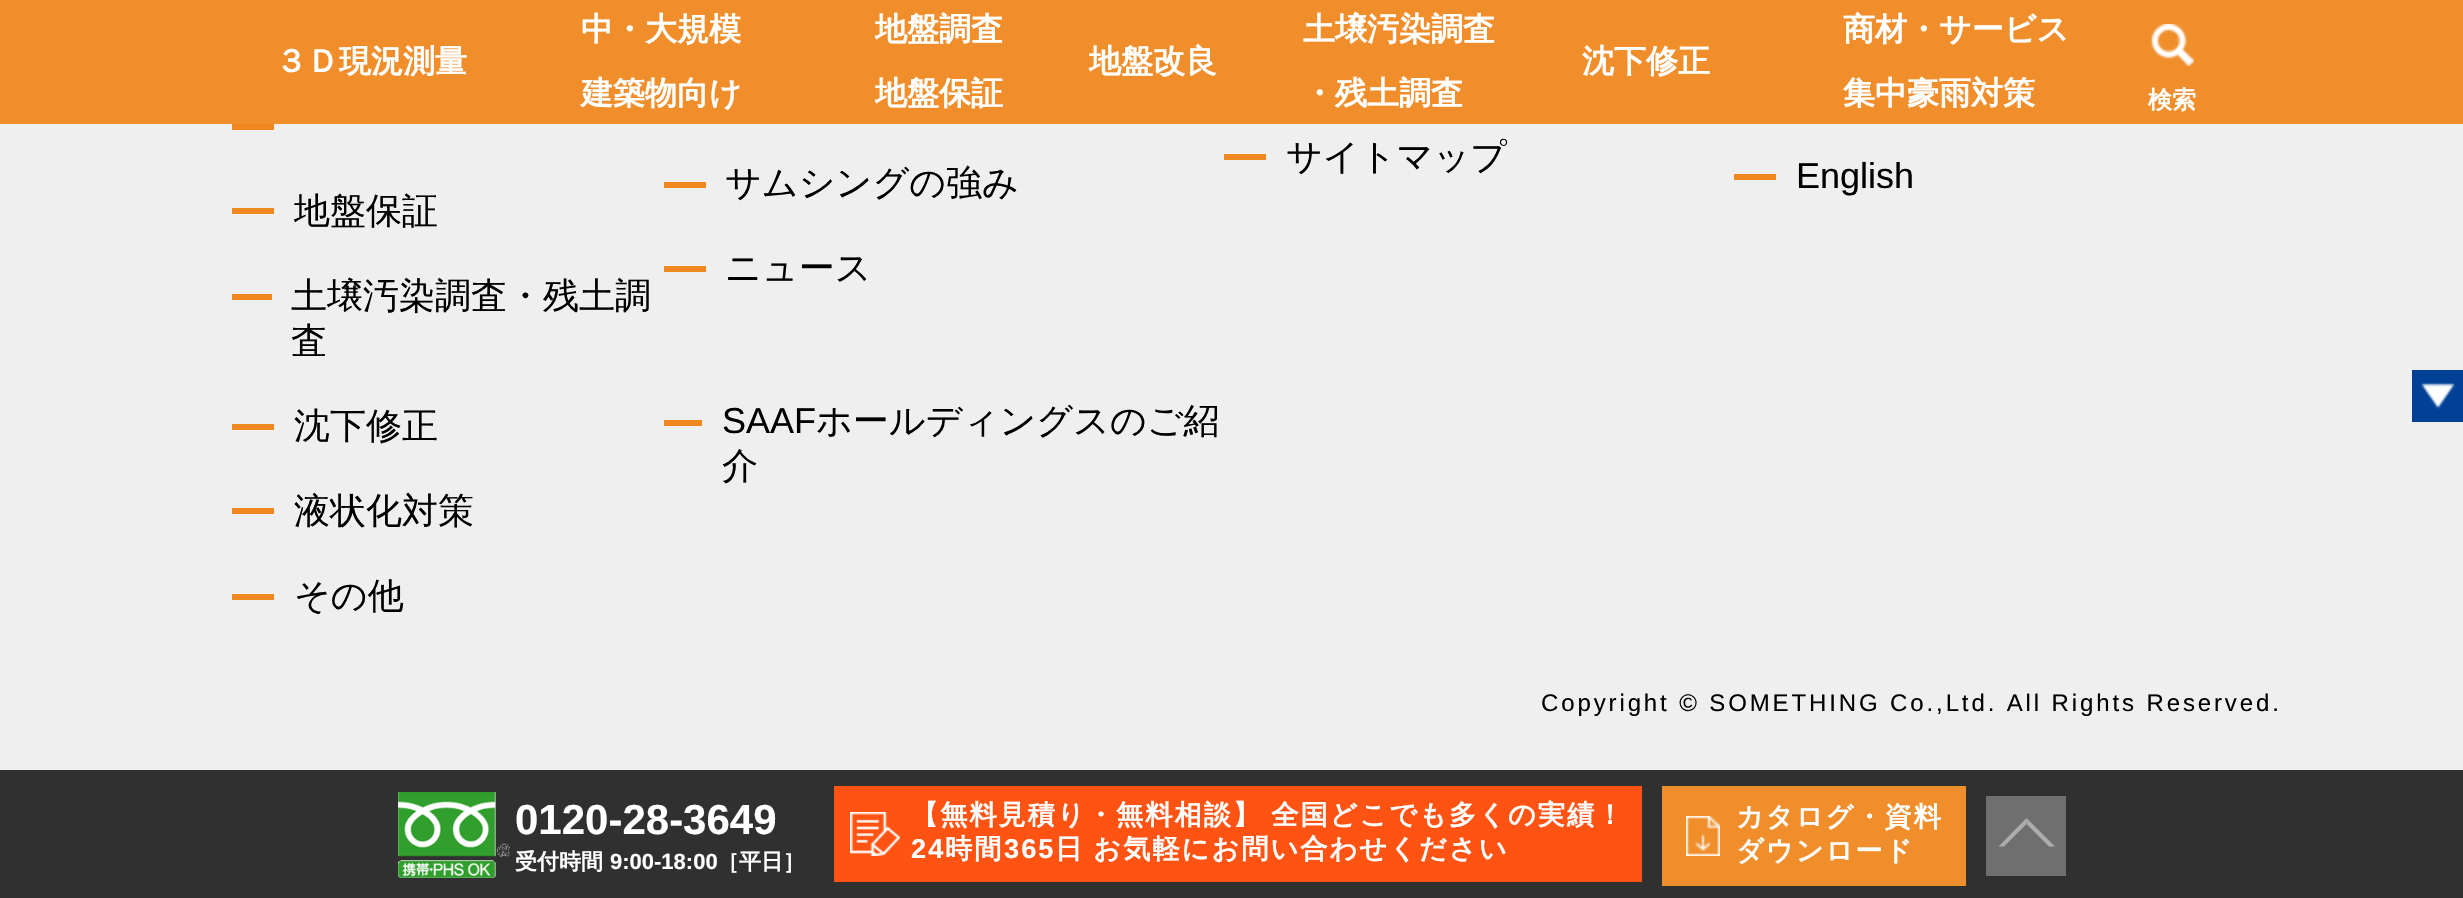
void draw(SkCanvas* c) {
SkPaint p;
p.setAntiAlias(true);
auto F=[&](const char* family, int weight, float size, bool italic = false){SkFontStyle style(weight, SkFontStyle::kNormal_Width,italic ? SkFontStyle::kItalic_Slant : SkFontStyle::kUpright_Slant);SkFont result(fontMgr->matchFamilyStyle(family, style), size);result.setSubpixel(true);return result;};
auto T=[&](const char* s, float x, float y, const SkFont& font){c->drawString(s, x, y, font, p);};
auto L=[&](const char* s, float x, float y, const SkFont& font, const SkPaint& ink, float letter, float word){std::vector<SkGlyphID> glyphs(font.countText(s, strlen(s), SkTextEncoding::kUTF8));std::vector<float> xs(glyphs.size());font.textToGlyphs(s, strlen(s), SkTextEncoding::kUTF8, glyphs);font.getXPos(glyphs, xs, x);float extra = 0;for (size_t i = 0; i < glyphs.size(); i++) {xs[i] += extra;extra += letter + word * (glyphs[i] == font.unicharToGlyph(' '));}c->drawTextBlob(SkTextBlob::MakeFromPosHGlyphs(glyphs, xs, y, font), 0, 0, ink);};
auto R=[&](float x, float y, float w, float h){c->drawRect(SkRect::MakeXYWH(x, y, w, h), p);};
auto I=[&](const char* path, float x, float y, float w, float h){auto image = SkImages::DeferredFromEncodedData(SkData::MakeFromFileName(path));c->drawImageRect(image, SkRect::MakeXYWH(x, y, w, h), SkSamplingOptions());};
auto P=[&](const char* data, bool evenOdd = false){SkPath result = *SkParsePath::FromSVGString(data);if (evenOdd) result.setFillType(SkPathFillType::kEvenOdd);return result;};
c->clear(0xffefefef);
p.setColor(0xfff08e2c);
R(0,0,2463,124);
auto f1 = F("WenQuanYi Zen Hei",700,32);
p.setColor(0xffffffff);
T("３Ｄ現況測量",275,72,f1);
T("中・大規模",581,40,f1);
T("建築物向け",581,104,f1);
T("地盤調査",875,40,f1);
T("地盤保証",875,104,f1);
T("地盤改良",1089,72,f1);
T("土壌汚染調査",1303,40,f1);
T("・残土調査",1303,104,f1);
T("沈下修正",1582,72,f1);
T("商材・サービス",1843,40,f1);
T("集中豪雨対策",1843,104,f1);
I("1.png",2151,24,43,42);
auto f2 = F("WenQuanYi Zen Hei",700,24);
T("検索",2148,108,f2);
p.setColor(0xfff1881f);
R(1224,154,42,6);
auto f3 = F("WenQuanYi Zen Hei",500,36);
p.setColor(0xff000000);
T("サイトマップ",1286,169,f3);
p.setColor(0xfff1881f);
R(232,124,42,6);
R(232,208,42,6);
p.setColor(0xff000000);
T("地盤保証",294,223,f3);
p.setColor(0xfff1881f);
R(232,294,40,6);
p.setColor(0xff000000);
T("土壌汚染調査・残土調",291,308,f3);
T("査",291,353,f3);
p.setColor(0xfff1881f);
R(232,424,42,6);
p.setColor(0xff000000);
T("沈下修正",294,438,f3);
p.setColor(0xfff1881f);
R(232,508,42,6);
p.setColor(0xff000000);
T("液状化対策",294,523,f3);
p.setColor(0xfff1881f);
R(232,594,42,6);
p.setColor(0xff000000);
T("その他",294,608,f3);
p.setColor(0xfff1881f);
R(664,182,42,6);
p.setColor(0xff000000);
T("サムシングの強み",725,195,f3);
p.setColor(0xfff1881f);
R(664,266,42,6);
p.setColor(0xff000000);
T("ニュース",725,280,f3);
p.setColor(0xfff1881f);
R(664,420,38,6);
auto f4 = F("Liberation Sans",400,36);
p.setColor(0xff000000);
T("SAAF",722,433,f4);
T("ホールディングスのご紹",816,433,f3);
T("介",722,478,f3);
p.setColor(0xfff1881f);
R(1734,174,42,6);
p.setColor(0xff000000);
T("English",1796,188,f4);
auto f5 = F("Liberation Sans",400,24);
L("Copyright © SOMETHING Co.,Ltd. All Rights Reserved.",1541,711,f5,p,2.88,0);
p.setColor(0xff303030);
R(0,770,2463,128);
I("2.png",398,792,112,86);
auto f6 = F("Liberation Sans",700,42);
p.setColor(0xffffffff);
T("0120-28-3649",515,834,f6);
auto f7 = F("WenQuanYi Zen Hei",700,22);
T("受付時間",515,869,f7);
auto f8 = F("Liberation Sans",700,22);
T("9:00-18:00",610,869,f8);
T("［平日］",717,869,f7);
p.setColor(0xffff5313);
R(834,786,808,96);
I("3.png",850,812,50,44);
auto f9 = F("WenQuanYi Zen Hei",700,27.2);
p.setColor(0xffffffff);
L("【無料見積り・無料相談】 全国どこでも多くの実績！",911,824,f9,p,2,-1);
auto f10 = F("Liberation Sans",700,27.2);
L("24",911,858,f10,p,2,0);
L("時間",945,858,f9,p,2,0);
L("365",1004,858,f10,p,2,0);
L("日 お気軽にお問い合わせください",1055,858,f9,p,2,-1);
p.setColor(0xfff08e2c);
R(1662,786,304,100);
I("4.png",1686,816,34,40);
p.setColor(0xffffffff);
L("カタログ・資料",1736,826,f9,p,2,0);
L("ダウンロード",1736,860,f9,p,2,0);
p.setColor(0xff6f6f6f);
R(1986,796,80,80);
p.setColor(0xffacacac);
c->drawPath(P("M1998.5 846.5l28-28.5v6l-22.5 22.5z"),p);
c->drawPath(P("M2026.5 818l28.5 28.5h-6l-22.5-22.5z"),p);
p.setColor(0xff004097);
R(2412,370,51,52);
I("5.png",2421,383,34,26);
}
